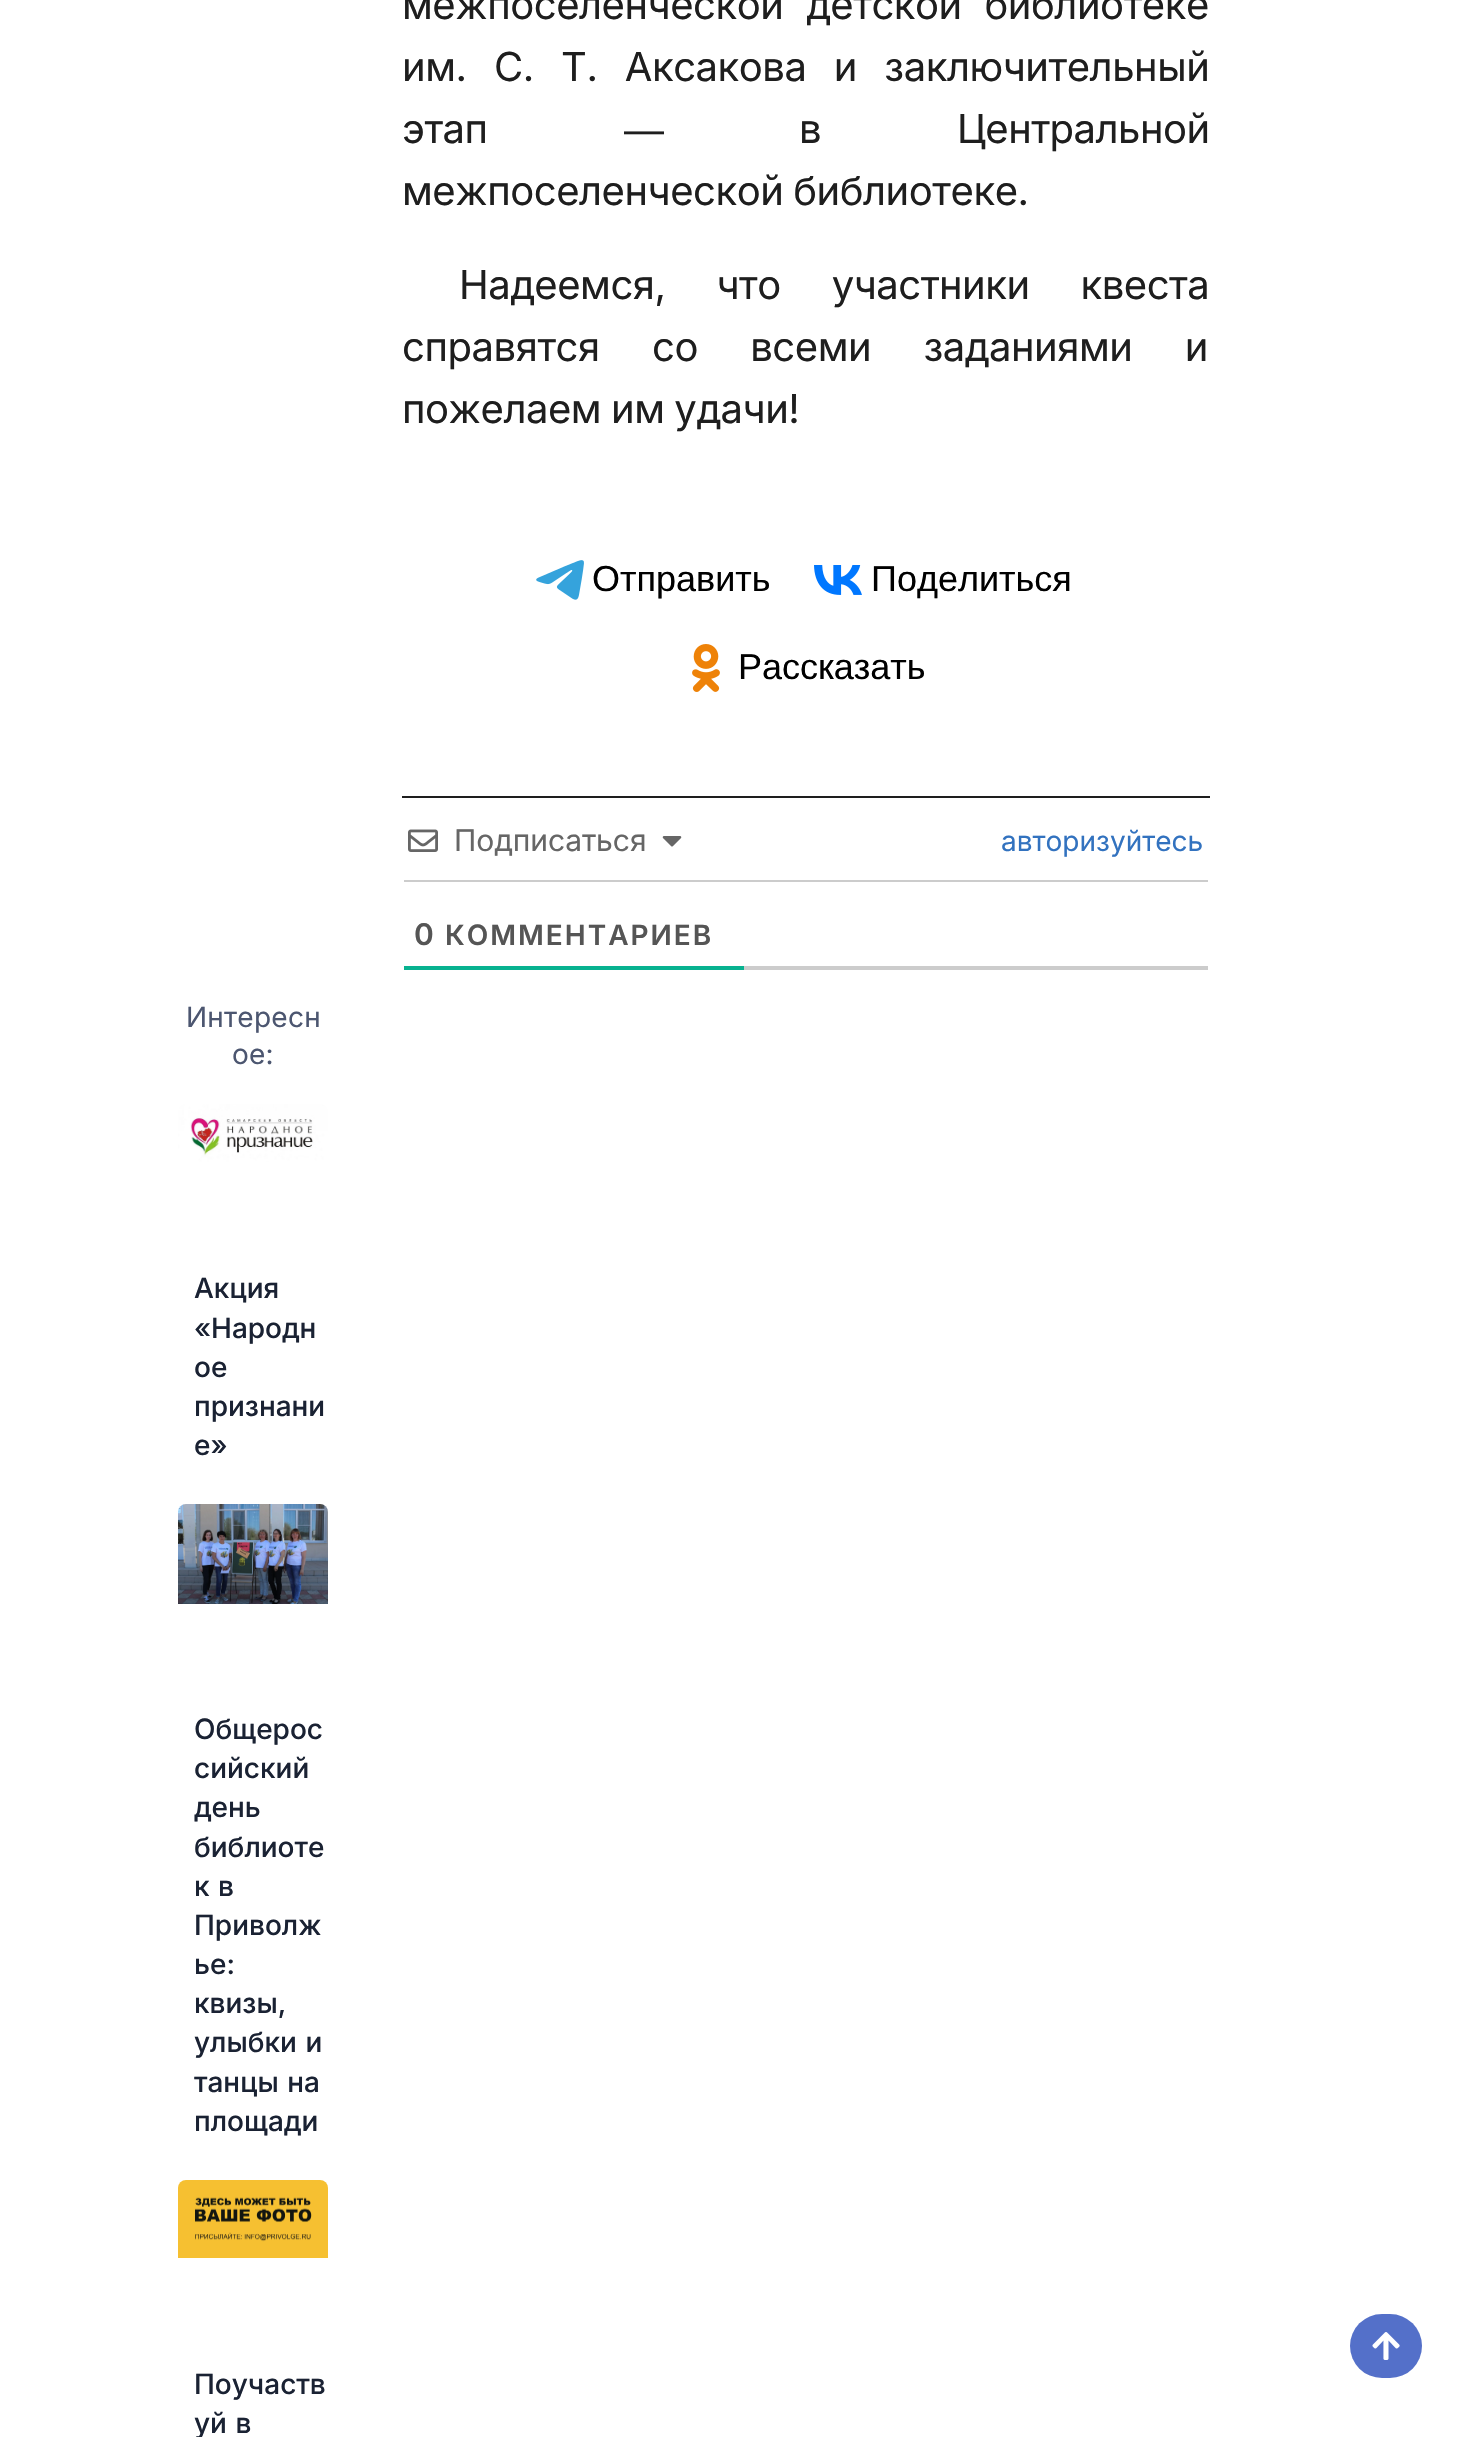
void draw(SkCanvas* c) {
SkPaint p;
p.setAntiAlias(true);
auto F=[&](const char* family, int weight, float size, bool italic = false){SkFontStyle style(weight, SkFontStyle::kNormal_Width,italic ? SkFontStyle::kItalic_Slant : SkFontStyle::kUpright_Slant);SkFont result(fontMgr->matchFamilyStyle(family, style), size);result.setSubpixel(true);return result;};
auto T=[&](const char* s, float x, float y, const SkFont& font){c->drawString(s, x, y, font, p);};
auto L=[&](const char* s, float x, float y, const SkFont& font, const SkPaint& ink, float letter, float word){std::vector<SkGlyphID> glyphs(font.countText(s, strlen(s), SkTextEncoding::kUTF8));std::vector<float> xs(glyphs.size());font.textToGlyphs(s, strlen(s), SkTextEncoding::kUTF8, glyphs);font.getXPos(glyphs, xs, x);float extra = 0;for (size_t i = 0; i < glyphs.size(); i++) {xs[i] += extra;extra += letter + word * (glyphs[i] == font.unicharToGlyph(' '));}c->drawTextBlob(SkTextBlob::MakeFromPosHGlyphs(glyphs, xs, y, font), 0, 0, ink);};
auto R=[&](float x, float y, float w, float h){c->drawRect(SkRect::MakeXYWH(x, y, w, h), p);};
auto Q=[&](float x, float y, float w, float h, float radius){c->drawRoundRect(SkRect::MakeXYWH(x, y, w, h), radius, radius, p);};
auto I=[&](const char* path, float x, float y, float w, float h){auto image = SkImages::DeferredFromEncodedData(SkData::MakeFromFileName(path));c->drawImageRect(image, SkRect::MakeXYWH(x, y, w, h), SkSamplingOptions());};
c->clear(0xffffffff);
auto f1 = F("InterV",400,40);
p.setColor(0xff1e1e1e);
L("межпоселенческой детской библиотеке",402,19,f1,p,-.45,12);
L("им. С. Т. Аксакова и заключительный",402,81,f1,p,-.45,16.5);
L("этап",402,143,f1,p,-.45,0);
auto f2 = F("Liberation Sans",400,40);
L("—",624,143,f2,p,-.45,0);
L("в Центральной",799,143,f1,p,-.45,125);
L("межпоселенческой библиотеке.",402,205,f1,p,-.45,-1);
L("Надеемся, что участники квеста",459,299,f1,p,-.45,40);
L("справятся со всеми заданиями и",402,361,f1,p,-.45,41.5);
L("пожелаем им удачи!",402,423,f1,p,-.45,-1);
I("1.png",536,560,48,40);
auto f3 = F("Liberation Sans",400,36);
p.setColor(0xff000000);
T("Отправить",592,591,f3);
I("2.png",814,565,48,30);
T("Поделиться",871,591,f3);
I("3.png",692,644,28,48);
T("Рассказать",738,679,f3);
p.setColor(0xff1e1e1e);
R(402,796,808,2);
p.setColor(0xffcccccc);
R(404,880,804,2);
I("4.png",408,829,30,23);
auto f4 = F("InterV",400,30);
p.setColor(0xff666666);
T("Подписаться",454,851,f4);
I("5.png",662,836,20,11);
auto f5 = F("InterV",400,28);
p.setColor(0xff3272bf);
T("авторизуйтесь",1001,851,f5);
p.setColor(0xffcccccc);
R(744,966,464,4);
p.setColor(0xff07b290);
R(404,966,340,4);
auto f6 = F("InterV",600,30);
p.setColor(0xff555555);
L("0",414,945,f6,p,2,0);
auto f7 = F("InterV",600,28);
L("КОММЕНТАРИЕВ",445,945,f7,p,2,0);
p.setColor(0xff4c5670);
L("Интересн",186,1027,f5,p,.25,0);
L("ое:",232,1064,f5,p,.25,0);
I("6.png",178,1104,150,58);
auto f8 = F("InterV",500,28);
p.setColor(0xff1a2233);
T("Акция",194,1298,f8);
T("«Народн",194,1338,f8);
T("ое",194,1377,f8);
T("признани",194,1416,f8);
T("е»",194,1455,f8);
I("7.png",178,1504,150,100);
T("Общерос",194,1739,f8);
T("сийский",194,1778,f8);
T("день",194,1817,f8);
T("библиоте",194,1857,f8);
L("к в",194,1896,f8,p,0,1);
T("Приволж",194,1935,f8);
T("ье:",194,1974,f8);
T("квизы,",194,2013,f8);
L("улыбки и",194,2052,f8,p,0,1);
L("танцы на",194,2092,f8,p,0,1);
T("площади",194,2131,f8);
I("8.png",178,2180,150,78);
T("Поучаств",194,2394,f8);
L("уй в",194,2433,f8,p,0,1);
p.setColor(0xff5470c9);
Q(1350,2314,72,64,32);
I("9.png",1372,2332,28,28);
}
